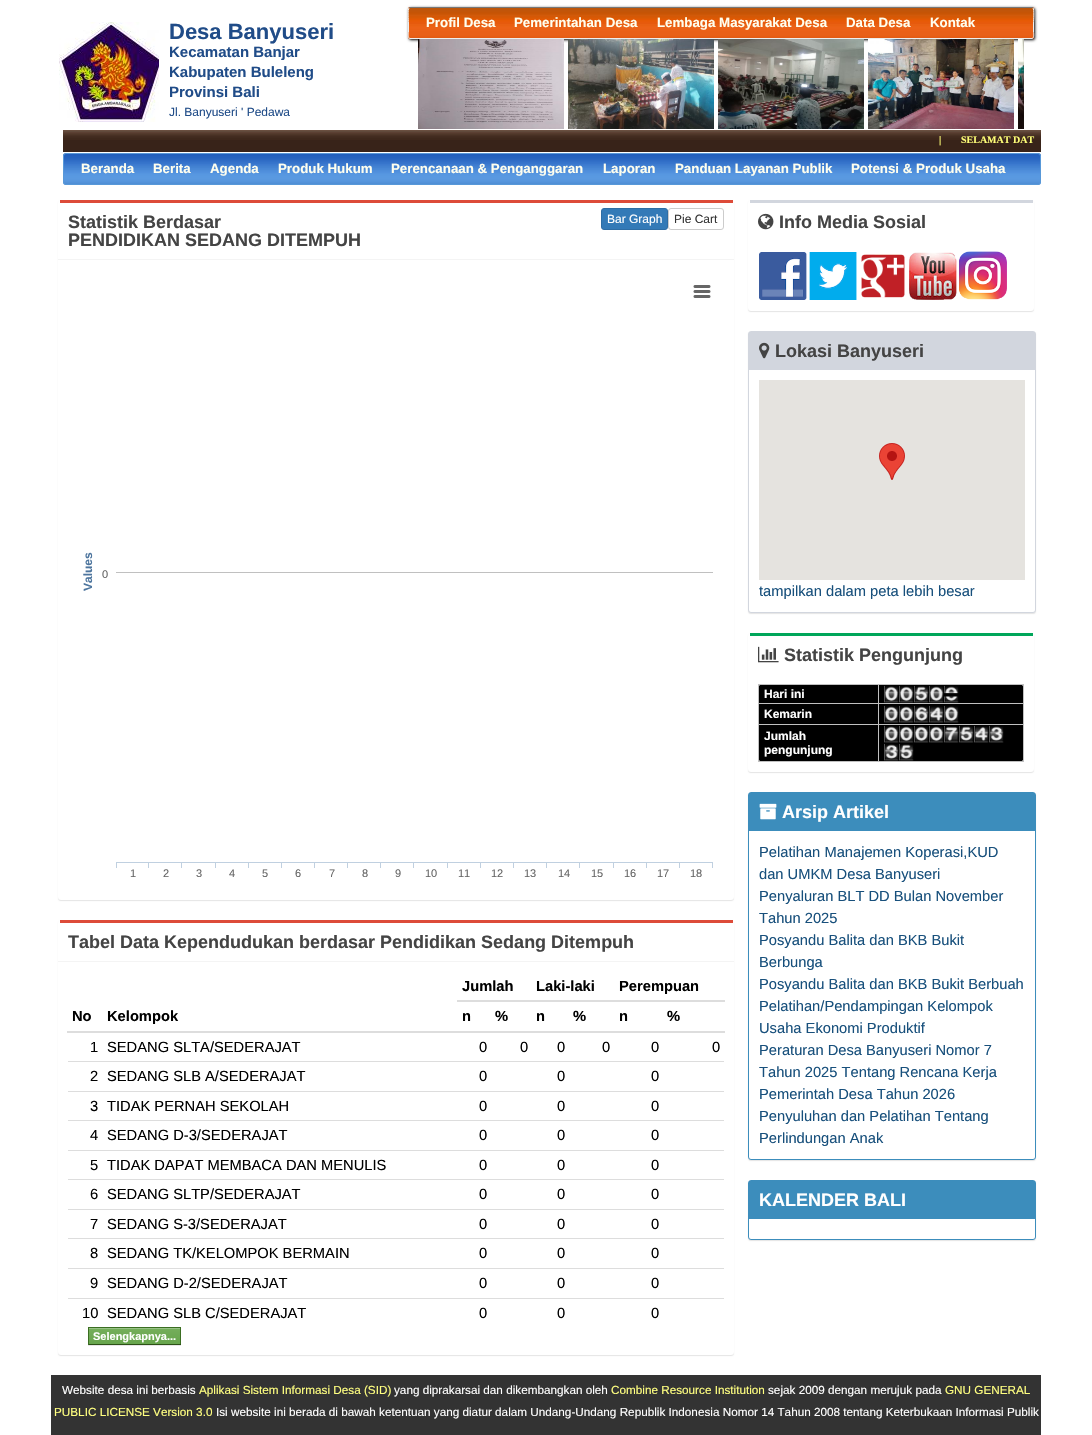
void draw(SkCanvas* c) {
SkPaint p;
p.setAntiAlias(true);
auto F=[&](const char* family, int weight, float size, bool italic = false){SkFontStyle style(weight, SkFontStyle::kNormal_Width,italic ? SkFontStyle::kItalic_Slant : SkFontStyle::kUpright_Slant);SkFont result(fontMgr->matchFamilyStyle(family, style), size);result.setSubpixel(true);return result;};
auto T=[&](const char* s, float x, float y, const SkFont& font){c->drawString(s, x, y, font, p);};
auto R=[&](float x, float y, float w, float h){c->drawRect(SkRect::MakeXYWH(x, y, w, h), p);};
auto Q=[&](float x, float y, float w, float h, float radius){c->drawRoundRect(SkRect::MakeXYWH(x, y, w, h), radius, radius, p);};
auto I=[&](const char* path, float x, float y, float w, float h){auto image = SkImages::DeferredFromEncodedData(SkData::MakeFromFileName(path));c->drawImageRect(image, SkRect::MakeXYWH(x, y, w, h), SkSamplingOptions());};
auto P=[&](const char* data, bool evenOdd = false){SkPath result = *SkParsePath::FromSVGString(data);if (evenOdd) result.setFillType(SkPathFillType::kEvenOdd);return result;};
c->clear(0xffffffff);
I("1.png",59,22,100,100);
auto f1 = F("Liberation Sans",700,22);
p.setColor(0xff204c88);
T("Desa Banyuseri",169,39,f1);
auto f2 = F("Liberation Sans",700,15);
T("Kecamatan Banjar",169,57,f2);
T("Kabupaten Buleleng",169,77,f2);
T("Provinsi Bali",169,97,f2);
auto f3 = F("Liberation Sans",400,12);
T("Jl. Banyuseri ' Pedawa",169,116,f3);
p.setColor(0xff000000);
p.setMaskFilter(SkMaskFilter::MakeBlur(kNormal_SkBlurStyle, 1.5));
c->drawRoundRect(SkRect::MakeXYWH(409,8,626,32),2,2,p);
p.setMaskFilter(nullptr);
I("2.png",408,7,626,32);
p.setStroke(true);
p.setStrokeWidth(1);
p.setColor(0xff777777);
c->drawPath(P("M409 8l1-.5h622l1 .5"),p);
p.setColor(0xffeeeeee);
c->drawPath(P("M1033 8c1.5 1.5 .5 12.5 .5 15v9.5c0 0 1 6-1.5 6h-622c-2.5 0-1.5-6-1.5-6v-9.5c0-2.5-1-13.5 .5-15"),p);
auto f4 = F("Liberation Sans",700,13.3);
p.setStroke(false);
p.setColor(0xffffffef);
T("Profil Desa",426,27,f4);
T("Pemerintahan Desa",514,27,f4);
T("Lembaga Masyarakat Desa",657,27,f4);
T("Data Desa",846,27,f4);
T("Kontak",930,27,f4);
I("3.png",418,39,146,90);
I("4.png",568,39,146,90);
I("5.png",718,39,146,90);
I("6.png",868,39,146,90);
I("7.png",1018,39,6,90);
I("8.png",63,130,978,22);
auto f5 = F("Liberation Serif",700,10);
p.setColor(0xfffefe77);
T("|",939,143,f5);
T("SELAMAT DAT",961,143,f5);
I("9.png",63,153,978,32);
p.setStroke(true);
p.setColor(0xff5898d8);
c->drawRoundRect(SkRect::MakeXYWH(63.5,153.5,977,31),2.5,2.5,p);
p.setStroke(false);
p.setColor(0xffffffef);
T("Beranda",81,173,f4);
T("Berita",153,173,f4);
T("Agenda",210,173,f4);
T("Produk Hukum",278,173,f4);
T("Perencanaan & Penganggaran",391,173,f4);
T("Laporan",603,173,f4);
T("Panduan Layanan Publik",675,173,f4);
T("Potensi & Produk Usaha",851,173,f4);
p.setColor(0x1a000000);
p.setMaskFilter(SkMaskFilter::MakeBlur(kNormal_SkBlurStyle, .5));
c->drawRoundRect(SkRect::MakeXYWH(58,201,676,700),3,3,p);
p.setMaskFilter(nullptr);
p.setColor(0xffffffff);
Q(58,200,676,700,3);
p.setColor(0xffdd4b39);
R(60,200,673,3);
p.setColor(0xfff4f4f4);
R(58,259,676,1);
auto f6 = F("Liberation Sans",700,18);
p.setColor(0xff444444);
T("Statistik Berdasar",68,228,f6);
T("PENDIDIKAN SEDANG DITEMPUH",68,246,f6);
p.setColor(0xff337ab7);
c->drawRoundRect(SkRect::MakeXYWH(601.5,208.5,66,21),2.5,2.5,p);
p.setStroke(true);
p.setColor(0xff2e6da4);
c->drawRoundRect(SkRect::MakeXYWH(601.5,208.5,66,21),2.5,2.5,p);
p.setStroke(false);
p.setColor(0xffffffff);
T("Bar Graph",607,223,f3);
p.setStroke(true);
p.setColor(0xffcccccc);
c->drawRoundRect(SkRect::MakeXYWH(668.5,208.5,55,21),2.5,2.5,p);
p.setStroke(false);
p.setColor(0xff333333);
T("Pie Cart",674,223,f3);
auto f7 = F("Liberation Sans",700,12);
p.setColor(0xff4d759e);
c->save();
c->rotate(-90,92,591);
T("Values",92,591,f7);
c->restore();
auto f8 = F("Liberation Sans",400,11);
p.setColor(0xff666666);
T("0",102,578,f8);
I("10.png",116,285,597,583);
T("1",130,877,f8);
T("2",163,877,f8);
T("3",196,877,f8);
T("4",229,877,f8);
T("5",262,877,f8);
T("6",295,877,f8);
T("7",329,877,f8);
T("8",362,877,f8);
T("9",395,877,f8);
T("10",425,877,f8);
T("11",458,877,f8);
T("12",491,877,f8);
T("13",524,877,f8);
T("14",558,877,f8);
T("15",591,877,f8);
T("16",624,877,f8);
T("17",657,877,f8);
T("18",690,877,f8);
p.setColor(0x1a000000);
p.setMaskFilter(SkMaskFilter::MakeBlur(kNormal_SkBlurStyle, .5));
c->drawRoundRect(SkRect::MakeXYWH(58,921,676,435),3,3,p);
p.setMaskFilter(nullptr);
p.setColor(0xffffffff);
Q(58,920,676,435,3);
p.setColor(0xffdd4b39);
R(60,920,673,3);
p.setColor(0xfff4f4f4);
R(58,961,676,1);
p.setColor(0xff444444);
T("Tabel Data Kependudukan berdasar Pendidikan Sedang Ditempuh",68,948,f6);
auto f9 = F("Liberation Sans",700,14.7);
p.setColor(0xff000000);
T("Jumlah",462,991,f9);
T("Laki-laki",536,991,f9);
p.setColor(0xffdddddd);
R(457,1000,268,2);
p.setColor(0xff000000);
T("Perempuan",619,991,f9);
T("No",72,1021,f9);
T("Kelompok",107,1021,f9);
T("n",462,1021,f9);
T("%",495,1021,f9);
T("n",536,1021,f9);
T("%",573,1021,f9);
T("n",619,1021,f9);
p.setColor(0xffdddddd);
R(67,1031,658,2);
p.setColor(0xff000000);
T("%",667,1021,f9);
auto f10 = F("Liberation Sans",400,14.7);
T("1",90,1052,f10);
T("SEDANG SLTA/SEDERAJAT",107,1052,f10);
T("0",479,1052,f10);
T("0",520,1052,f10);
T("0",557,1052,f10);
T("0",602,1052,f10);
T("0",651,1052,f10);
T("0",712,1052,f10);
p.setColor(0xffdddddd);
R(68,1061,656,1);
p.setColor(0xff000000);
T("2",90,1081,f10);
T("SEDANG SLB A/SEDERAJAT",107,1081,f10);
T("0",479,1081,f10);
T("0",557,1081,f10);
T("0",651,1081,f10);
p.setColor(0xffdddddd);
R(68,1091,656,1);
p.setColor(0xff000000);
T("3",90,1111,f10);
T("TIDAK PERNAH SEKOLAH",107,1111,f10);
T("0",479,1111,f10);
T("0",557,1111,f10);
T("0",651,1111,f10);
p.setColor(0xffdddddd);
R(68,1120,656,1);
p.setColor(0xff000000);
T("4",90,1140,f10);
T("SEDANG D-3/SEDERAJAT",107,1140,f10);
T("0",479,1140,f10);
T("0",557,1140,f10);
T("0",651,1140,f10);
p.setColor(0xffdddddd);
R(68,1150,656,1);
p.setColor(0xff000000);
T("5",90,1170,f10);
T("TIDAK DAPAT MEMBACA DAN MENULIS",107,1170,f10);
T("0",479,1170,f10);
T("0",557,1170,f10);
T("0",651,1170,f10);
p.setColor(0xffdddddd);
R(68,1179,656,1);
p.setColor(0xff000000);
T("6",90,1199,f10);
T("SEDANG SLTP/SEDERAJAT",107,1199,f10);
T("0",479,1199,f10);
T("0",557,1199,f10);
T("0",651,1199,f10);
p.setColor(0xffdddddd);
R(68,1209,656,1);
p.setColor(0xff000000);
T("7",90,1229,f10);
T("SEDANG S-3/SEDERAJAT",107,1229,f10);
T("0",479,1229,f10);
T("0",557,1229,f10);
T("0",651,1229,f10);
p.setColor(0xffdddddd);
R(68,1238,656,1);
p.setColor(0xff000000);
T("8",90,1258,f10);
T("SEDANG TK/KELOMPOK BERMAIN",107,1258,f10);
T("0",479,1258,f10);
T("0",557,1258,f10);
T("0",651,1258,f10);
p.setColor(0xffdddddd);
R(68,1268,656,1);
p.setColor(0xff000000);
T("9",90,1288,f10);
T("SEDANG D-2/SEDERAJAT",107,1288,f10);
T("0",479,1288,f10);
T("0",557,1288,f10);
T("0",651,1288,f10);
p.setColor(0xffdddddd);
R(68,1298,656,1);
p.setColor(0xff000000);
T("10",82,1318,f10);
T("SEDANG SLB C/SEDERAJAT",107,1318,f10);
T("0",479,1318,f10);
T("0",557,1318,f10);
T("0",651,1318,f10);
p.setColor(0xffe6e6e6);
R(88,1345,93,1);
{
const SkColor colors[] = {0xff75ae5c,0xff67a54b};
const float stops[] = {0,1};
const SkPoint ends[] = {{135,1328}, {135,1344}};
p.setShader(SkGradientShader::MakeLinear(ends, colors, stops, 2, SkTileMode::kClamp));
p.setAlpha(255);
}
R(89,1329,91,15);
p.setShader(nullptr);
p.setColor(0xff98c286);
R(89,1328,91,1);
p.setColor(0xff3b6e22);
R(88,1327,93,1);
R(180,1327,1,18);
p.setColor(0xff2c5115);
R(88,1344,93,1);
p.setColor(0xff3b6e22);
R(88,1327,1,18);
auto f11 = F("Liberation Sans",700,11);
p.setColor(0xffffffff);
T("Selengkapnya...",93,1340,f11);
p.setColor(0x1a000000);
p.setMaskFilter(SkMaskFilter::MakeBlur(kNormal_SkBlurStyle, .5));
c->drawRoundRect(SkRect::MakeXYWH(748,201,286,111),3,3,p);
p.setMaskFilter(nullptr);
p.setColor(0xffffffff);
Q(748,200,286,111,3);
p.setColor(0xffd2d6de);
R(750,200,283,3);
I("11.png",758,213,16,17);
p.setColor(0xff444444);
T("Info Media Sosial",779,228,f6);
I("12.png",759,252,48,48);
I("13.png",809,252,48,48);
I("14.png",861,254,44,44);
I("15.png",909,252,48,48);
I("16.png",959,251,48,49);
p.setColor(0x1a000000);
p.setMaskFilter(SkMaskFilter::MakeBlur(kNormal_SkBlurStyle, .5));
c->drawRoundRect(SkRect::MakeXYWH(748,332,288,282),3,3,p);
p.setMaskFilter(nullptr);
p.setColor(0xffffffff);
c->drawRoundRect(SkRect::MakeXYWH(748.5,331.5,287,281),2.5,2.5,p);
p.setStroke(true);
p.setColor(0xffd2d6de);
c->drawRoundRect(SkRect::MakeXYWH(748.5,331.5,287,281),2.5,2.5,p);
p.setStroke(false);
R(749,332,286,38);
I("17.png",759,342,11,17);
p.setColor(0xff444444);
T("Lokasi Banyuseri",775,357,f6);
p.setColor(0xffe5e3df);
R(759,380,266,200);
I("18.png",879,443,26,37);
p.setColor(0xff18507c);
T("tampilkan dalam peta lebih besar",759,596,f10);
p.setColor(0x1a000000);
p.setMaskFilter(SkMaskFilter::MakeBlur(kNormal_SkBlurStyle, .5));
c->drawRoundRect(SkRect::MakeXYWH(748,634,286,139),3,3,p);
p.setMaskFilter(nullptr);
p.setColor(0xffffffff);
Q(748,633,286,139,3);
p.setColor(0xff00a65a);
R(750,633,283,3);
I("19.png",758,646,21,17);
p.setColor(0xff444444);
T("Statistik Pengunjung",784,661,f6);
p.setColor(0xff000000);
Q(758,684,266,78,5);
p.setColor(0xffc0c0c0);
R(758,684,266,1);
R(1023,684,1,78);
R(758,761,266,1);
R(758,684,1,78);
R(878,724,1,38);
R(878,724,146,1);
R(878,703,1,22);
R(878,703,146,1);
R(878,684,1,20);
R(758,703,121,1);
p.setColor(0xffffffff);
T("Hari ini",764,698,f7);
I("20.png",884,685,15,18);
I("20.png",899,685,15,18);
I("21.png",914,685,15,18);
I("20.png",929,685,15,18);
I("22.png",944,685,15,18);
p.setColor(0xffc0c0c0);
R(758,724,121,1);
p.setColor(0xffffffff);
T("Kemarin",764,718,f7);
I("20.png",884,705,15,18);
I("20.png",899,705,15,18);
I("23.png",914,705,15,18);
I("24.png",929,705,15,18);
I("25.png",944,705,15,18);
T("Jumlah",764,740,f7);
T("pengunjung",764,754,f7);
I("20.png",884,725,15,18);
I("20.png",899,725,15,18);
I("20.png",914,725,15,18);
I("20.png",929,725,15,18);
I("26.png",944,725,15,18);
I("21.png",959,725,15,18);
I("24.png",974,725,15,18);
I("27.png",989,725,15,18);
I("27.png",884,743,15,18);
I("28.png",899,743,15,18);
p.setColor(0x1a000000);
p.setMaskFilter(SkMaskFilter::MakeBlur(kNormal_SkBlurStyle, .5));
c->drawRoundRect(SkRect::MakeXYWH(748,793,288,368),3,3,p);
p.setMaskFilter(nullptr);
p.setColor(0xffffffff);
c->drawRoundRect(SkRect::MakeXYWH(748.5,792.5,287,367),2.5,2.5,p);
p.setStroke(true);
p.setColor(0xff3c8dbc);
c->drawRoundRect(SkRect::MakeXYWH(748.5,792.5,287,367),2.5,2.5,p);
p.setStroke(false);
R(749,793,286,38);
I("29.png",759,803,18,17);
p.setColor(0xffffffff);
T("Arsip Artikel",782,818,f6);
p.setColor(0xff18507c);
T("Pelatihan Manajemen Koperasi,KUD",759,857,f10);
T("dan UMKM Desa Banyuseri",759,879,f10);
T("Penyaluran BLT DD Bulan November",759,901,f10);
T("Tahun 2025",759,923,f10);
T("Posyandu Balita dan BKB Bukit",759,945,f10);
T("Berbunga",759,967,f10);
T("Posyandu Balita dan BKB Bukit Berbuah",759,989,f10);
T("Pelatihan/Pendampingan Kelompok",759,1011,f10);
T("Usaha Ekonomi Produktif",759,1033,f10);
T("Peraturan Desa Banyuseri Nomor 7",759,1055,f10);
T("Tahun 2025 Tentang Rencana Kerja",759,1077,f10);
T("Pemerintah Desa Tahun 2026",759,1099,f10);
T("Penyuluhan dan Pelatihan Tentang",759,1121,f10);
T("Perlindungan Anak",759,1143,f10);
p.setColor(0x1a000000);
p.setMaskFilter(SkMaskFilter::MakeBlur(kNormal_SkBlurStyle, .5));
c->drawRoundRect(SkRect::MakeXYWH(748,1181,288,60),3,3,p);
p.setMaskFilter(nullptr);
p.setColor(0xffffffff);
c->drawRoundRect(SkRect::MakeXYWH(748.5,1180.5,287,59),2.5,2.5,p);
p.setStroke(true);
p.setColor(0xff3c8dbc);
c->drawRoundRect(SkRect::MakeXYWH(748.5,1180.5,287,59),2.5,2.5,p);
p.setStroke(false);
R(749,1181,286,38);
p.setColor(0xffffffff);
T("KALENDER BALI",759,1206,f6);
p.setColor(0xff333333);
R(51,1375,990,60);
auto f12 = F("Liberation Sans",400,11.73);
p.setColor(0xffffffff);
T("Website desa ini berbasis",62,1394,f12);
p.setColor(0xffffff80);
T("Aplikasi Sistem Informasi Desa (SID)",199,1394,f12);
p.setColor(0xffffffff);
T("yang diprakarsai dan dikembangkan oleh",394,1394,f12);
p.setColor(0xffffff80);
T("Combine Resource Institution",611,1394,f12);
p.setColor(0xffffffff);
T("sejak 2009 dengan merujuk pada",768,1394,f12);
p.setColor(0xffffff80);
T("GNU GENERAL",945,1394,f12);
T("PUBLIC LICENSE Version 3.0",54,1416,f12);
p.setColor(0xffffffff);
T("Isi website ini berada di bawah ketentuan yang diatur dalam Undang-Undang Republik Indonesia Nomor 14 Tahun 2008 tentang Keterbukaan Informasi Publik",216,1416,f12);
}
